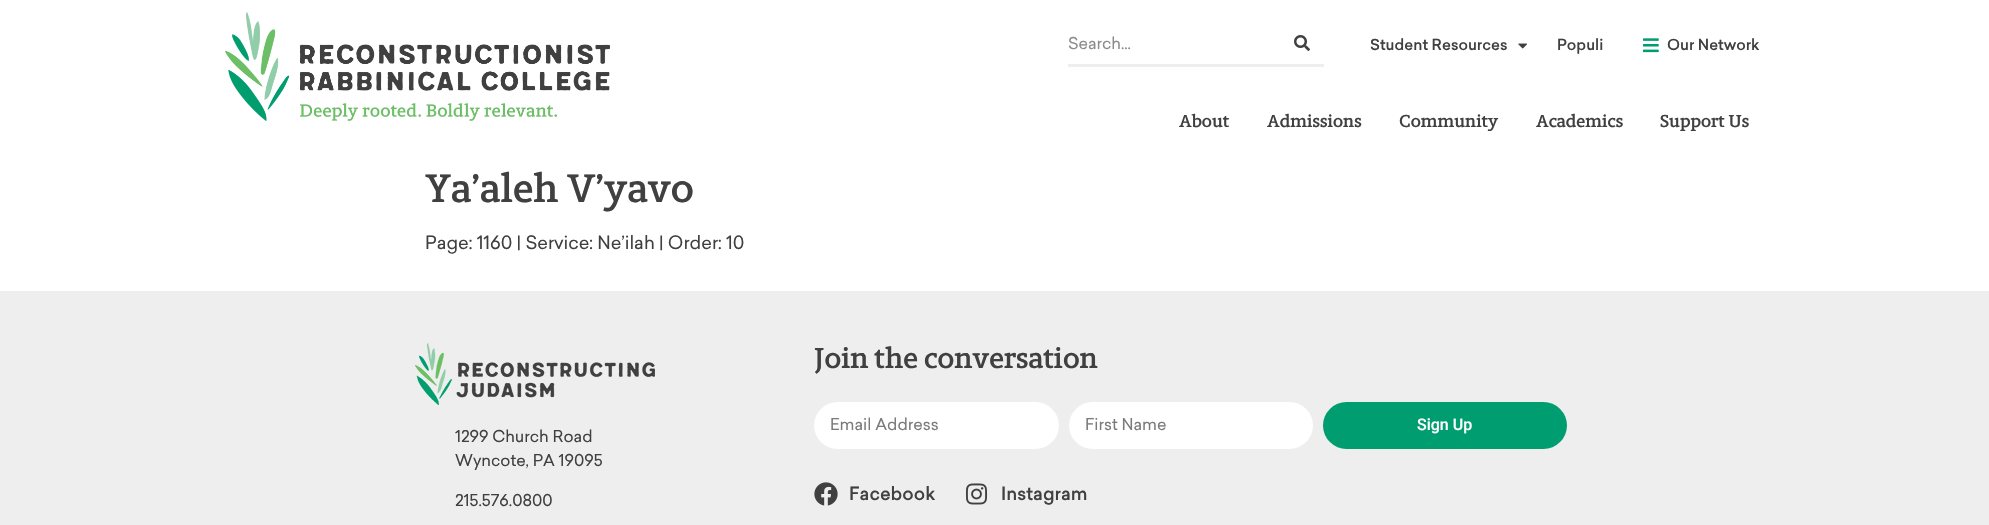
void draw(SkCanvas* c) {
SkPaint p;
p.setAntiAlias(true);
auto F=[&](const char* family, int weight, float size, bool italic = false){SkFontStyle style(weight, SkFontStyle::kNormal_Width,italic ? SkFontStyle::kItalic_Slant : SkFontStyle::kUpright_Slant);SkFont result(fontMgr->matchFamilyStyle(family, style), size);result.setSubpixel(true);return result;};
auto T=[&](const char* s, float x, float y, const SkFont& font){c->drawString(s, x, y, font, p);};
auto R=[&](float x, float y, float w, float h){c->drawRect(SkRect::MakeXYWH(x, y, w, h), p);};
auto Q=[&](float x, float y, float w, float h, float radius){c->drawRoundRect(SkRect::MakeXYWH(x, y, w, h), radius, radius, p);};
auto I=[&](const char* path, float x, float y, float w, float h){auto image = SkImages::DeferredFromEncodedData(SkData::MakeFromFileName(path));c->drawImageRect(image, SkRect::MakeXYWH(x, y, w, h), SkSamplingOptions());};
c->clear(0xffffffff);
I("1.png",225,12,385,109);
p.setColor(0xffeeeeee);
R(1068,64,256,3);
auto f1 = F("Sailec",400,16);
p.setColor(0xff8c8c8c);
T("Search...",1068,49,f1);
I("2.png",1294,35,16,16);
auto f2 = F("Sailec",500,15);
p.setColor(0xff404040);
T("Student Resources",1370,50,f2);
I("3.png",1518,43,9,6);
T("Populi",1557,50,f2);
I("4.png",1643,38,16,15);
T("Our Network",1667,50,f2);
auto f3 = F("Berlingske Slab",600,17.5);
T("About",1179,127,f3);
T("Admissions",1267,127,f3);
T("Community",1399,127,f3);
T("Academics",1536,127,f3);
T("Support Us",1660,127,f3);
auto f4 = F("Berlingske Slab",600,40);
T("Ya’aleh V’yavo",425,202,f4);
auto f5 = F("Sailec",400,18);
T("Page: 1160 | Service: Ne’ilah | Order: 10",425,249,f5);
p.setColor(0xffeeeeee);
R(0,291,1989,234);
I("5.png",415,343,240,62);
p.setColor(0xff404040);
T("1299 Church Road",455,442,f1);
T("Wyncote, PA 19095",455,466,f1);
T("215.576.0800",455,506,f1);
auto f6 = F("Berlingske Slab",600,29);
T("Join the conversation",814,368,f6);
p.setColor(0xffffffff);
Q(814,402,245,47,23.5);
p.setColor(0xff797a7c);
T("Email Address",830,430,f1);
p.setColor(0xffffffff);
Q(1069,402,244,47,23.5);
p.setColor(0xff797a7c);
T("First Name",1085,430,f1);
p.setColor(0xff009d70);
Q(1323,402,244,47,23.5);
auto f7 = F("Roboto",500,16);
p.setColor(0xffffffff);
T("Sign Up",1417,430,f7);
I("6.png",814,482,24,24);
auto f8 = F("Sailec",500,18);
p.setColor(0xff404040);
T("Facebook",849,500,f8);
I("7.png",966,483,22,22);
T("Instagram",1001,500,f8);
}
